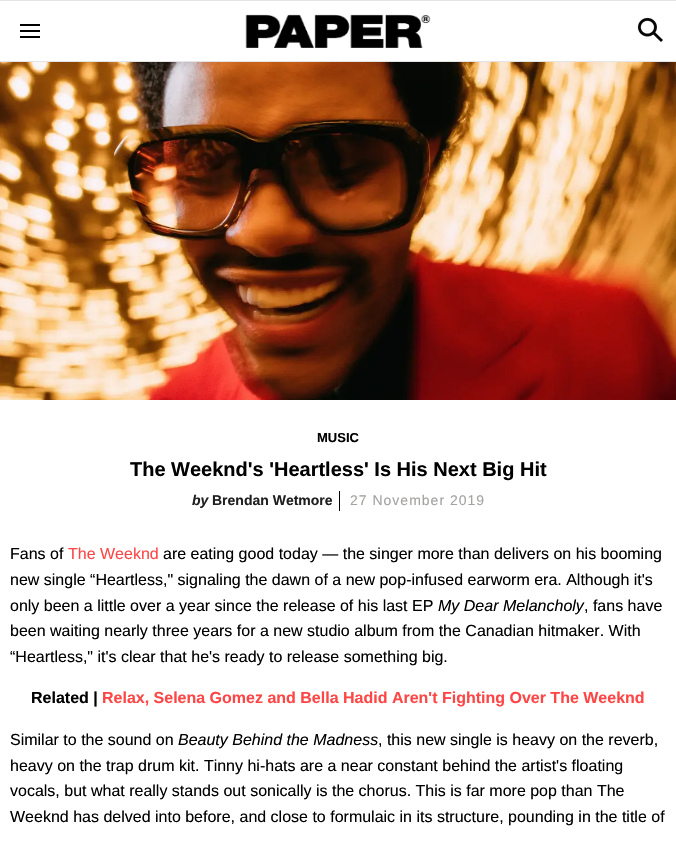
void draw(SkCanvas* c) {
SkPaint p;
p.setAntiAlias(true);
auto F=[&](const char* family, int weight, float size, bool italic = false){SkFontStyle style(weight, SkFontStyle::kNormal_Width,italic ? SkFontStyle::kItalic_Slant : SkFontStyle::kUpright_Slant);SkFont result(fontMgr->matchFamilyStyle(family, style), size);result.setSubpixel(true);return result;};
auto T=[&](const char* s, float x, float y, const SkFont& font){c->drawString(s, x, y, font, p);};
auto L=[&](const char* s, float x, float y, const SkFont& font, const SkPaint& ink, float letter, float word){std::vector<SkGlyphID> glyphs(font.countText(s, strlen(s), SkTextEncoding::kUTF8));std::vector<float> xs(glyphs.size());font.textToGlyphs(s, strlen(s), SkTextEncoding::kUTF8, glyphs);font.getXPos(glyphs, xs, x);float extra = 0;for (size_t i = 0; i < glyphs.size(); i++) {xs[i] += extra;extra += letter + word * (glyphs[i] == font.unicharToGlyph(' '));}c->drawTextBlob(SkTextBlob::MakeFromPosHGlyphs(glyphs, xs, y, font), 0, 0, ink);};
auto R=[&](float x, float y, float w, float h){c->drawRect(SkRect::MakeXYWH(x, y, w, h), p);};
auto I=[&](const char* path, float x, float y, float w, float h){auto image = SkImages::DeferredFromEncodedData(SkData::MakeFromFileName(path));c->drawImageRect(image, SkRect::MakeXYWH(x, y, w, h), SkSamplingOptions());};
c->clear(0xffffffff);
p.setColor(0xffe4e4e4);
R(0,0,676,1);
R(0,61,676,1);
p.setColor(0xff000000);
R(20,30,20,2);
R(20,24,20,2);
R(20,36,20,2);
I("1.png",245,14,186,34);
I("2.png",637,17,26,25);
I("3.png",0,62,676,338);
auto f1 = F("Liberation Sans",700,13);
T("MUSIC",317,442,f1);
auto f2 = F("Liberation Sans",700,20);
T("The Weeknd's 'Heartless' Is His Next Big Hit",130,476,f2);
auto f3 = F("Liberation Sans",700,14,true);
p.setColor(0xff1f1f1f);
T("by",192,505,f3);
auto f4 = F("Liberation Sans",700,14);
T("Brendan Wetmore",212,505,f4);
p.setColor(0xff000000);
R(339,491,1,20);
auto f5 = F("Liberation Sans",400,14);
p.setColor(0xffa4a2a0);
L("27 November 2019",350,505,f5,p,1,0);
auto f6 = F("Liberation Sans",400,16);
p.setColor(0xff000000);
T("Fans of",10,559,f6);
p.setColor(0xfffe4646);
T("The Weeknd",68,559,f6);
p.setColor(0xff000000);
T("are eating good today — the singer more than delivers on his booming",163,559,f6);
T("new single “Heartless,\" signaling the dawn of a new pop-infused earworm era. Although it's",10,585,f6);
T("only been a little over a year since the release of his last EP",10,611,f6);
auto f7 = F("Liberation Sans",400,16,true);
T("My Dear Melancholy",438,611,f7);
T(", fans have",584,611,f6);
T("been waiting nearly three years for a new studio album from the Canadian hitmaker. With",10,636,f6);
T("“Heartless,\" it's clear that he's ready to release something big.",10,662,f6);
auto f8 = F("Liberation Sans",700,16);
T("Related |",31,703,f8);
p.setColor(0xfffe4646);
T("Relax, Selena Gomez and Bella Hadid Aren't Fighting Over The Weeknd",102,703,f8);
p.setColor(0xff000000);
T("Similar to the sound on",10,745,f6);
T("Beauty Behind the Madness",178,745,f7);
T(", this new single is heavy on the reverb,",378,745,f6);
T("heavy on the trap drum kit. Tinny hi-hats are a near constant behind the artist's floating",10,771,f6);
T("vocals, but what really stands out sonically is the chorus. This is far more pop than The",10,796,f6);
T("Weeknd has delved into before, and close to formulaic in its structure, pounding in the title of",10,822,f6);
}
